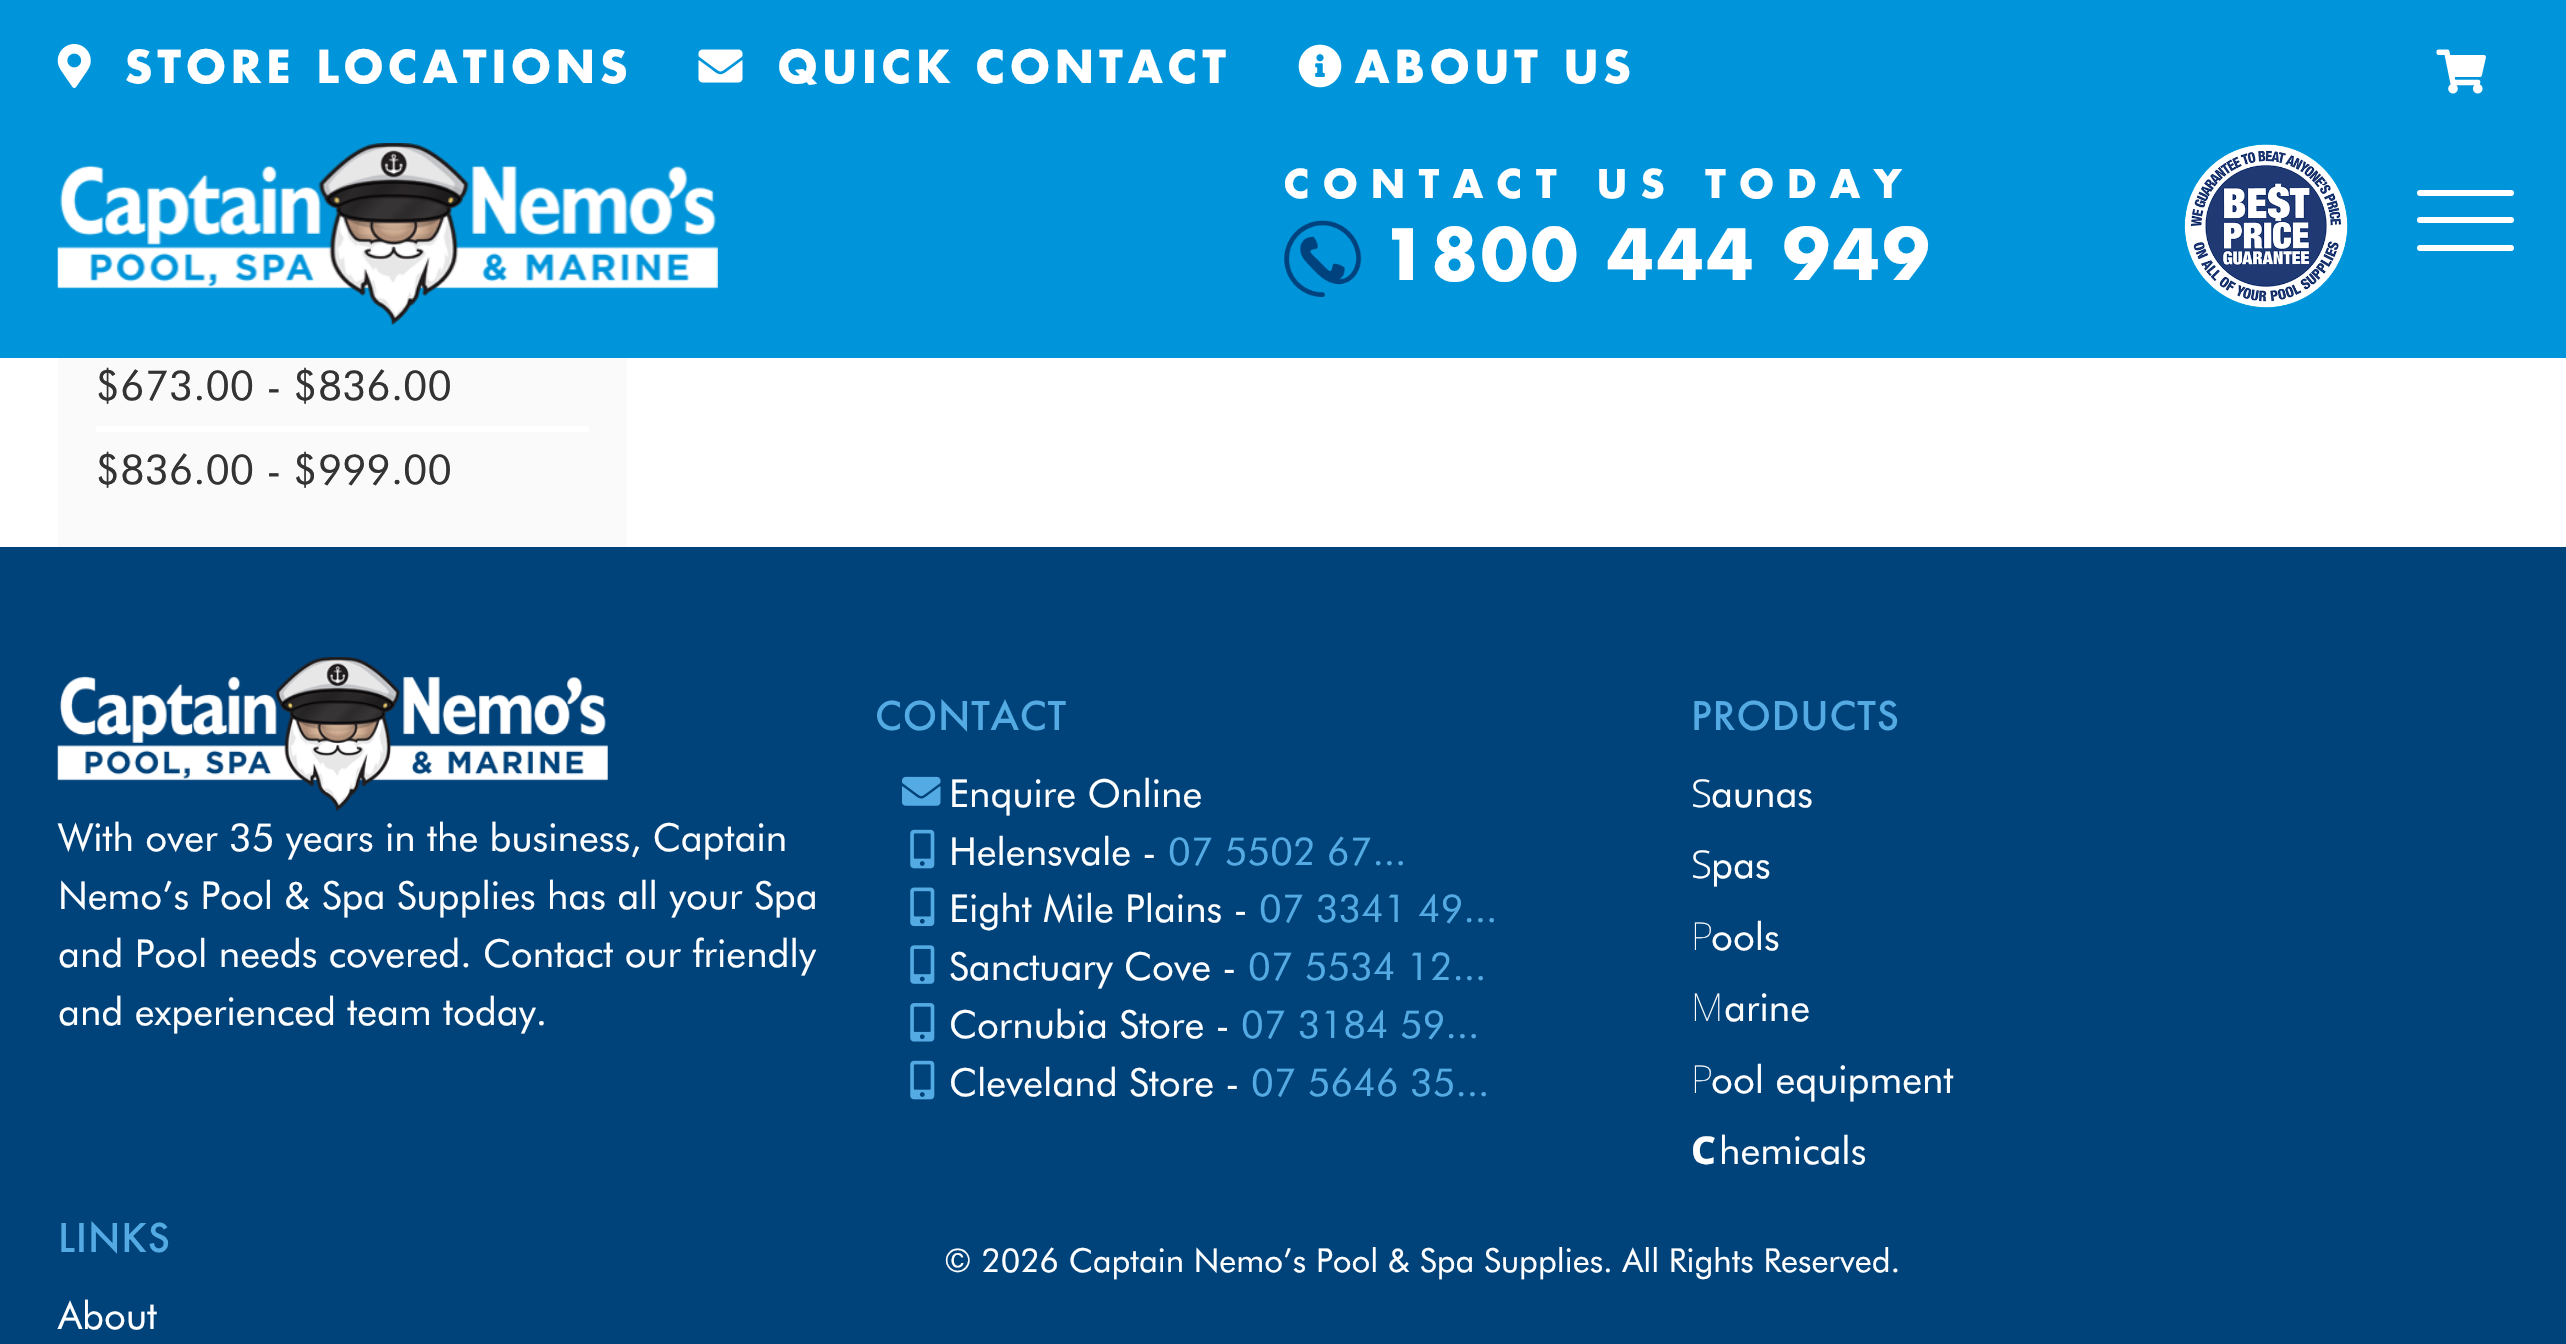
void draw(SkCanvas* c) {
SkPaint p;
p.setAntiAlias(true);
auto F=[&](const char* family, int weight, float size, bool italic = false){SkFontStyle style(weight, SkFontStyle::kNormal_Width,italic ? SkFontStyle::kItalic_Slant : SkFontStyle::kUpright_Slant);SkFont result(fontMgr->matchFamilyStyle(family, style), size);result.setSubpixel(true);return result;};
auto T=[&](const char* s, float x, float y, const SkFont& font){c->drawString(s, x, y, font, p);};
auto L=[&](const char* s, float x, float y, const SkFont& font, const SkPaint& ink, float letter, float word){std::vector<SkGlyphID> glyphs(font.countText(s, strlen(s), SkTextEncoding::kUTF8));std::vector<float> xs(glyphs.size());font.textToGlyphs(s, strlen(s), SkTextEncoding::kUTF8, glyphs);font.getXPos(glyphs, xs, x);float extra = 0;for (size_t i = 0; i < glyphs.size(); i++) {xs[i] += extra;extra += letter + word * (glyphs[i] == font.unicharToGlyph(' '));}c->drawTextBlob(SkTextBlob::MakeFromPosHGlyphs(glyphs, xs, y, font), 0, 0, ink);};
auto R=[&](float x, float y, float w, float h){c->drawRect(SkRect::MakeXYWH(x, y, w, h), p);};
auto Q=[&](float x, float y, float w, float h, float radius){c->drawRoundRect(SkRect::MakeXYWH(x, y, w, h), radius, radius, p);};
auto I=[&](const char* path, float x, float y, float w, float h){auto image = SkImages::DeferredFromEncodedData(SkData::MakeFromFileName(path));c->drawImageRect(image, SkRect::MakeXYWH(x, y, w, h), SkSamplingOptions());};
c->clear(0xffffffff);
p.setColor(0xff0095da);
R(0,0,2566,358);
I("1.png",57,44,34,44);
auto f1 = F("Futura",700,44);
p.setColor(0xffffffff);
L("STORE LOCATIONS",125,83,f1,p,5.5,0);
I("2.png",698,49,45,34);
L("QUICK CONTACT",778,83,f1,p,5.5,0);
I("3.png",1298,44,44,44);
L("ABOUT US",1355,83,f1,p,5.5,0);
I("4.png",2436,49,50,45);
I("5.png",57,143,661,182);
auto f2 = F("Futura",700,38.5);
L("CONTACT US TODAY",1284,198,f2,p,13.75,0);
I("6.png",1284,220,78,77);
auto f3 = F("Futura",700,68.75);
L("1800 444 949",1381,280,f3,p,2.75,0);
I("7.png",2184,143,164,165);
Q(2417,217,97,6,3);
Q(2417,190,97,6,3);
Q(2417,245,97,6,3);
p.setColor(0xfffafafa);
R(58,358,569,189);
p.setColor(0xffffffff);
R(96,426,493,6);
auto f4 = F("Futura",400,41.25);
p.setColor(0xff333333);
T("$673.00 - $836.00",96,400,f4);
T("$836.00 - $999.00",96,484,f4);
p.setColor(0xff00427a);
R(0,547,2566,797);
I("8.png",57,657,551,154);
auto f5 = F("Futura",400,38.5);
p.setColor(0xffffffff);
T("With over 35 years in the business, Captain",58,851,f5);
T("Nemo’s Pool & Spa Supplies has all your Spa",58,909,f5);
T("and Pool needs covered. Contact our friendly",58,967,f5);
T("and experienced team today.",58,1025,f5);
auto f6 = F("Futura",500,38.5);
p.setColor(0xff54aae2);
L("CONTACT",875,730,f6,p,.75,0);
I("9.png",902,776,39,30);
p.setColor(0xffffffff);
T("Enquire Online",949,807,f5);
I("10.png",910,829,25,40);
T("Helensvale -",949,865,f5);
p.setColor(0xff54aae2);
T("07 5502 67...",1168,865,f5);
I("11.png",910,887,25,40);
p.setColor(0xffffffff);
T("Eight Mile Plains -",949,922,f5);
p.setColor(0xff54aae2);
T("07 3341 49...",1259,922,f5);
I("12.png",910,945,25,39);
p.setColor(0xffffffff);
T("Sanctuary Cove -",949,980,f5);
p.setColor(0xff54aae2);
T("07 5534 12...",1248,980,f5);
I("13.png",910,1003,25,39);
p.setColor(0xffffffff);
T("Cornubia Store -",949,1038,f5);
p.setColor(0xff54aae2);
T("07 3184 59...",1241,1038,f5);
I("10.png",910,1060,25,40);
p.setColor(0xffffffff);
T("Cleveland Store -",949,1096,f5);
p.setColor(0xff54aae2);
T("07 5646 35...",1251,1096,f5);
L("PRODUCTS",1691,730,f6,p,.75,0);
auto f7 = F("Noto Sans",300,38.5);
p.setColor(0xffffffff);
T("S",1691,807,f7);
T("aunas",1711,807,f5);
T("S",1691,878,f7);
T("pas",1711,878,f5);
auto f8 = F("Noto Sans",100,38.5);
T("P",1691,950,f8);
T("ools",1711,950,f5);
T("M",1691,1021,f8);
T("arine",1724,1021,f5);
T("P",1691,1093,f8);
T("ool equipment",1711,1093,f5);
auto f9 = F("Noto Sans",800,38.5);
T("C",1691,1164,f9);
T("hemicals",1719,1164,f5);
p.setColor(0xff54aae2);
L("LINKS",58,1252,f6,p,.75,0);
p.setColor(0xffffffff);
T("About",58,1329,f5);
auto f10 = F("Futura",400,33);
T("© 2026 Captain Nemo’s Pool & Spa Supplies. All Rights Reserved.",944,1272,f10);
}
